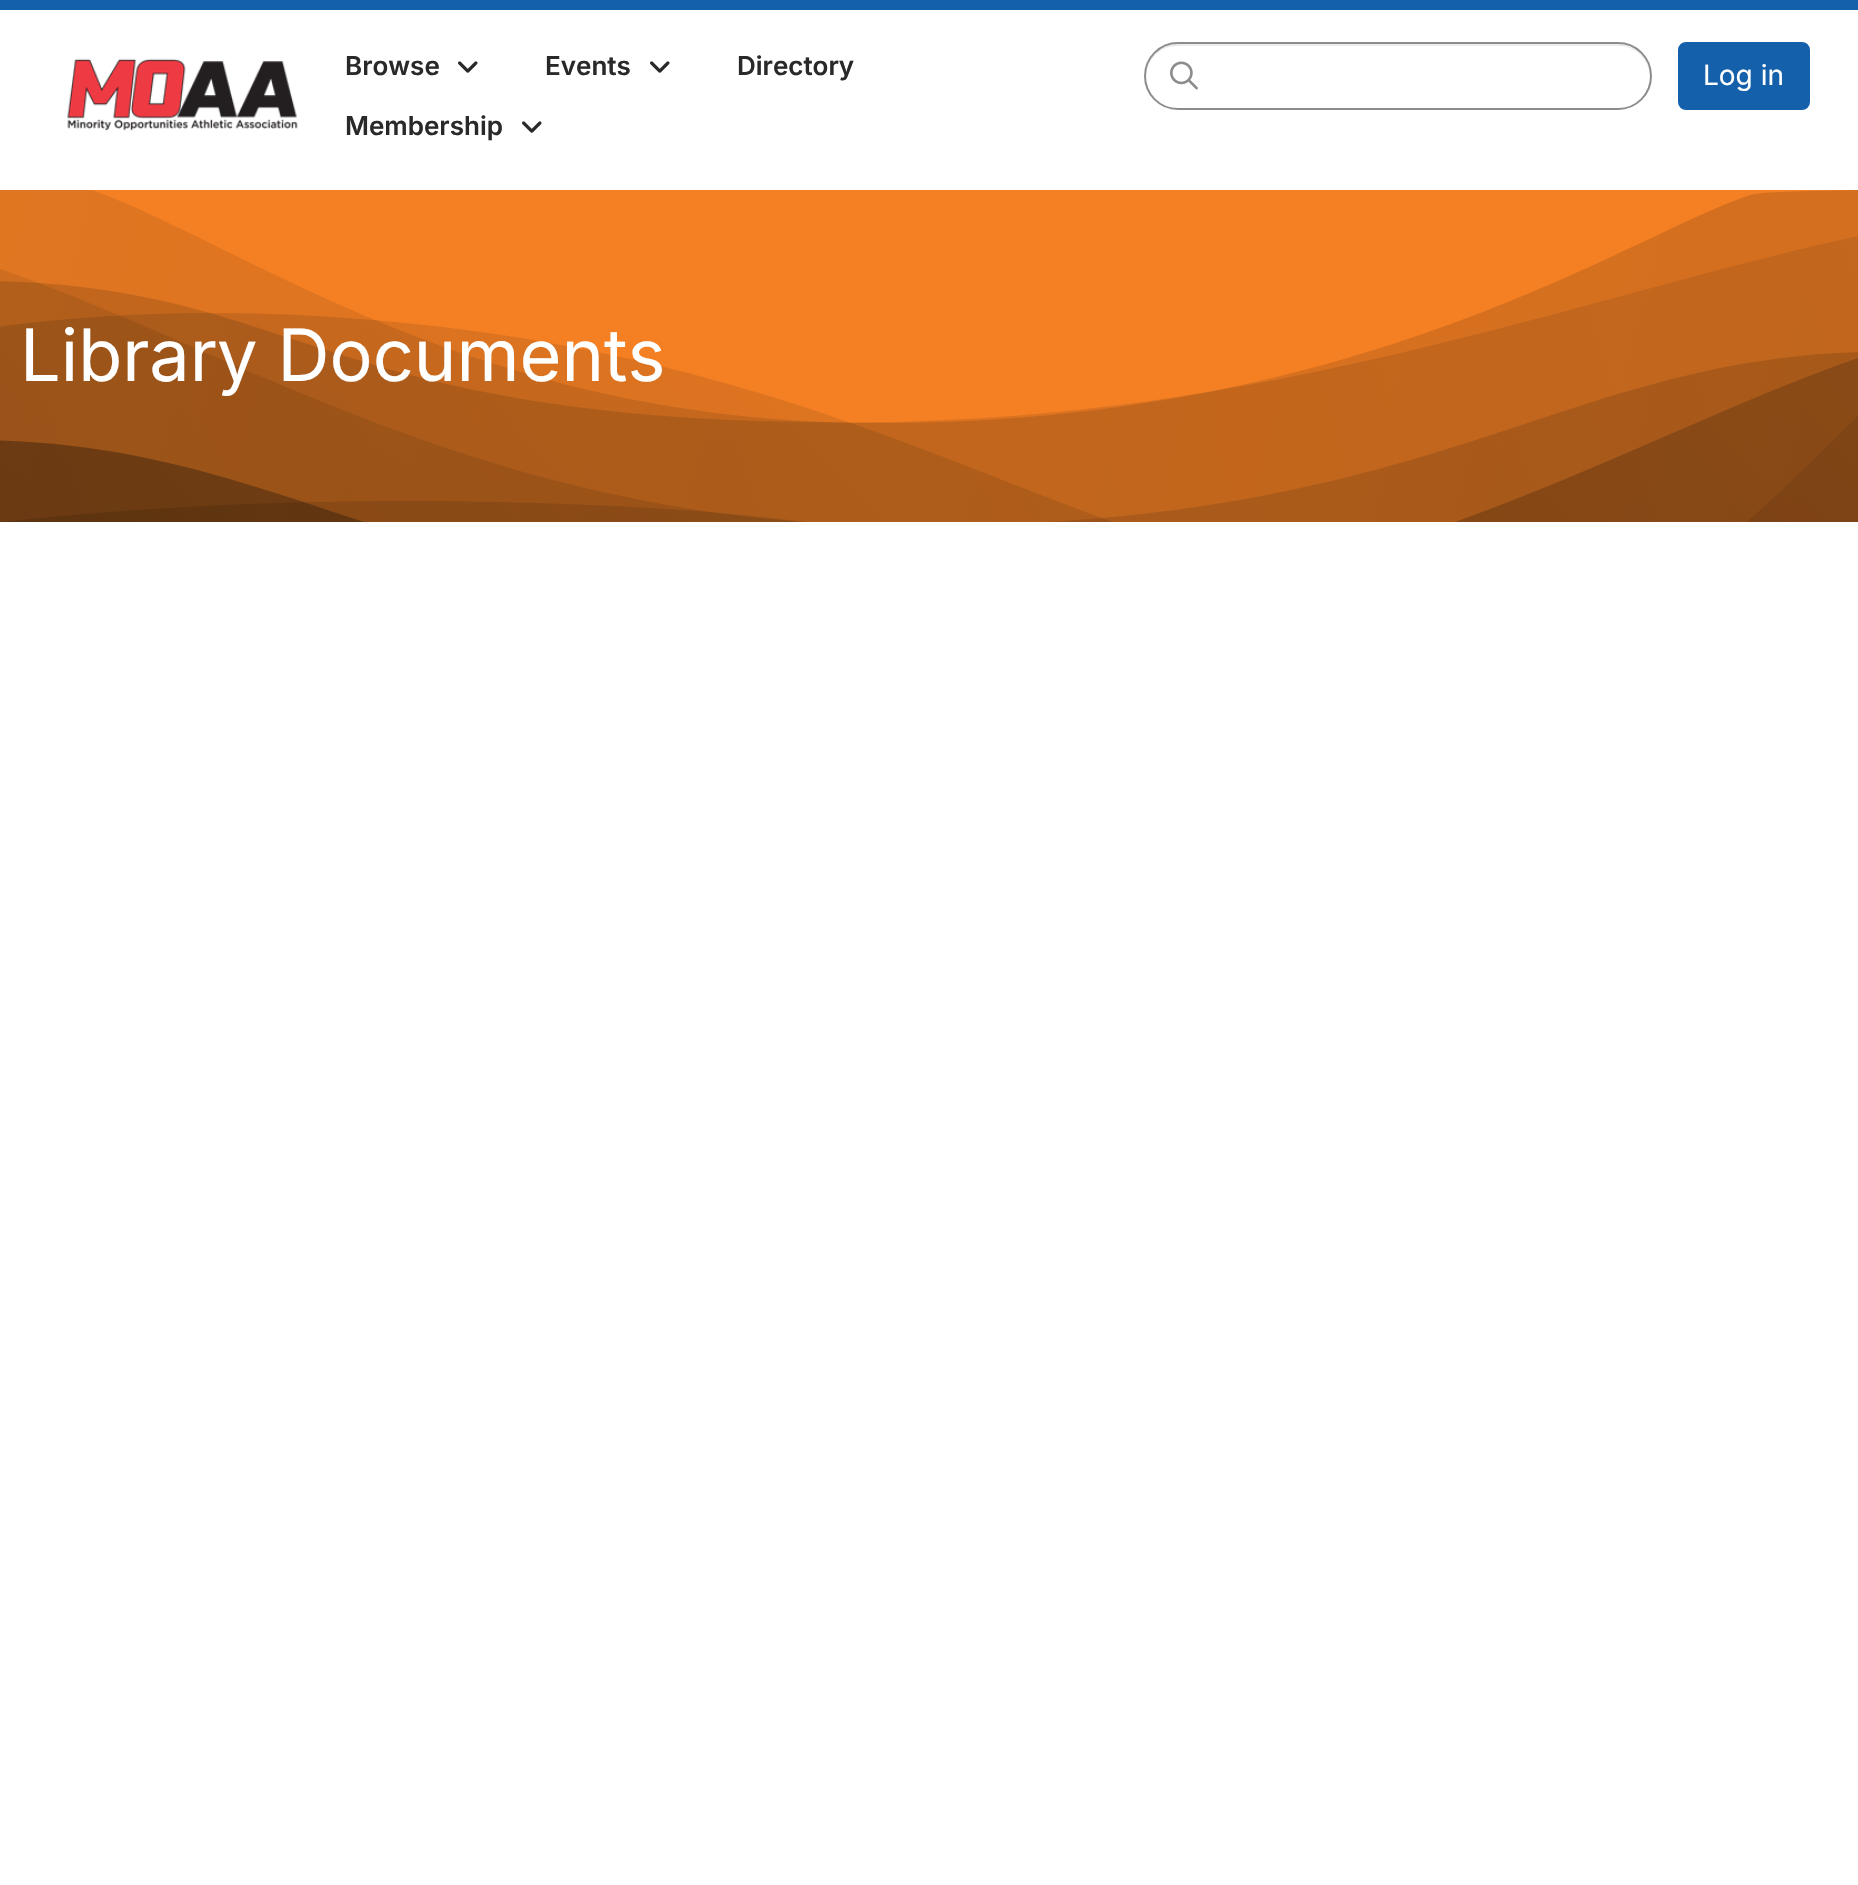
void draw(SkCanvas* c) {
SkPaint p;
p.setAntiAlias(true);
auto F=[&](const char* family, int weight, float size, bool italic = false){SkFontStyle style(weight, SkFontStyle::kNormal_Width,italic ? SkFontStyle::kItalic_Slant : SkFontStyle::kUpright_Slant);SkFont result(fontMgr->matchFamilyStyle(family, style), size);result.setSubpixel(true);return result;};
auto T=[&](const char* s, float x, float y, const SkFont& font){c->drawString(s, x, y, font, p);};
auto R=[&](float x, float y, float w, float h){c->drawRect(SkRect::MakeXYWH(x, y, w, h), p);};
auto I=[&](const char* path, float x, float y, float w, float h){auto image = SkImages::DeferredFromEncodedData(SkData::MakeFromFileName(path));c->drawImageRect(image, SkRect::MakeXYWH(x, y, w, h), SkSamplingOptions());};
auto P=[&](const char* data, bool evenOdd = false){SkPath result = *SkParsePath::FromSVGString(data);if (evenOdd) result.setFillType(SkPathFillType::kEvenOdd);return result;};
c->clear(0xffffffff);
p.setColor(0xff1460aa);
R(0,0,1858,10);
I("1.png",67,58,231,73);
auto f1 = F("Inter",600,26);
p.setColor(0xff292929);
T("Browse",345,75,f1);
I("2.png",458,61,20,12);
T("Events",545,75,f1);
I("2.png",650,61,20,12);
T("Directory",737,75,f1);
T("Membership",345,135,f1);
I("2.png",522,121,20,12);
p.setColor(0xffececec);
c->drawPath(P("M1178 46h440c18 0 31 13 32 31c1-18-14-33-32-33h-440c-18 0-33 15-32 33c1-18 14-31 32-31z"),p);
p.setStroke(true);
p.setStrokeWidth(2);
p.setColor(0xff8c8c8c);
c->drawRoundRect(SkRect::MakeXYWH(1145,43,506,66),33,33,p);
I("3.png",1170,61,28,29);
p.setStroke(false);
p.setColor(0xff1460aa);
c->drawRoundRect(SkRect::MakeXYWH(1679,43,130,66),7,7,p);
p.setStroke(true);
c->drawRoundRect(SkRect::MakeXYWH(1679,43,130,66),7,7,p);
auto f2 = F("Inter",400,28);
p.setStroke(false);
p.setColor(0xffffffff);
T("Log in",1703,85,f2);
I("4.png",0,190,1858,332);
auto f3 = F("Inter",400,72);
T("Library Documents",20,381,f3);
}
